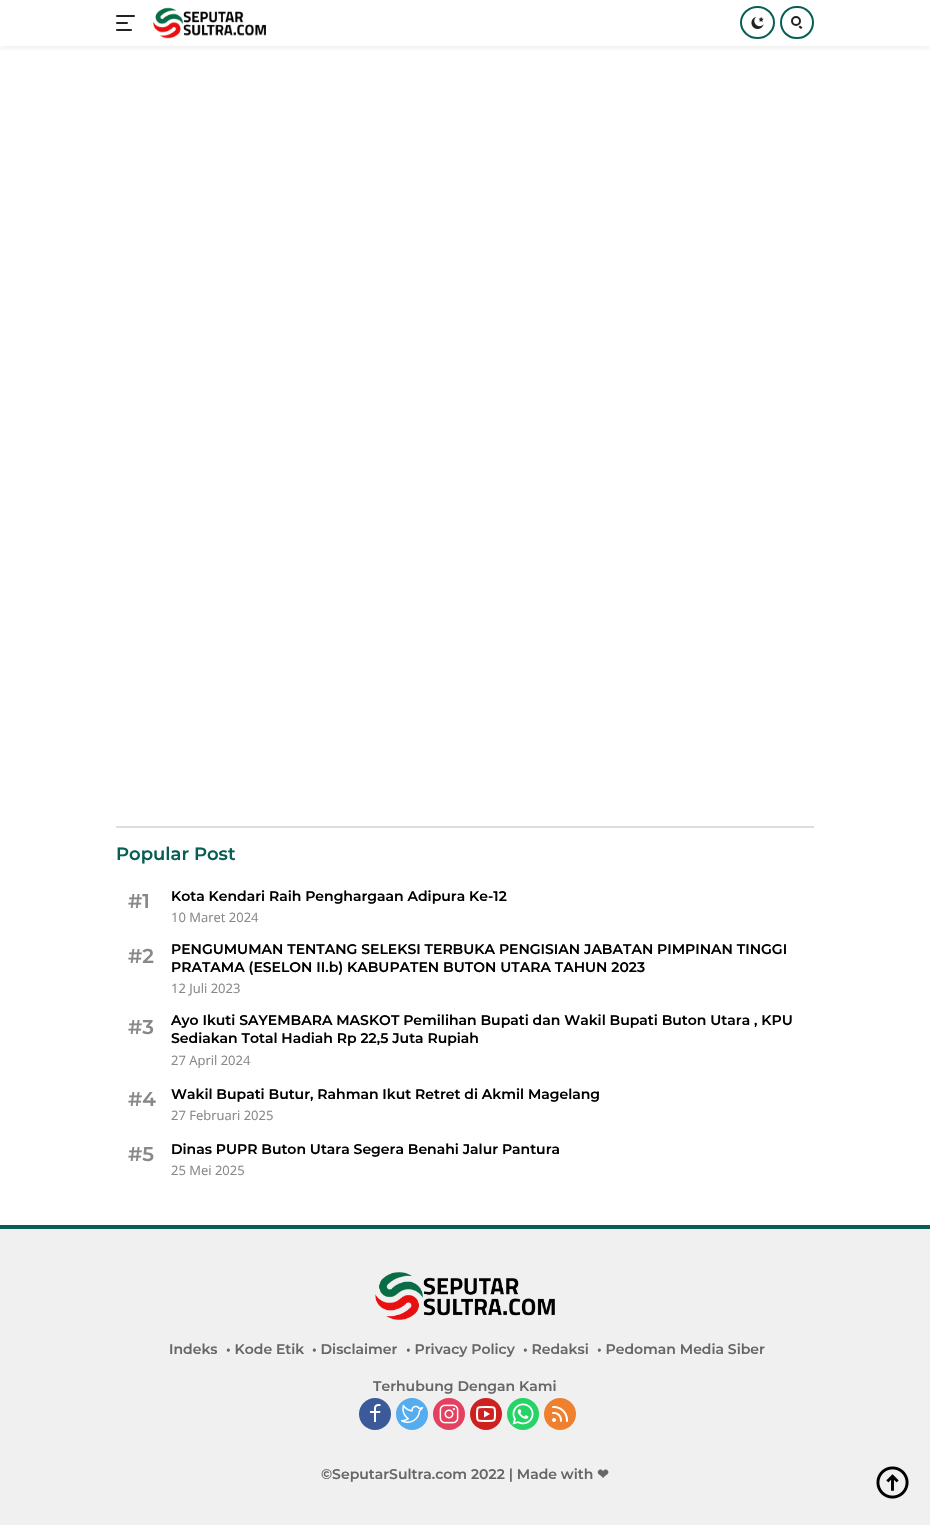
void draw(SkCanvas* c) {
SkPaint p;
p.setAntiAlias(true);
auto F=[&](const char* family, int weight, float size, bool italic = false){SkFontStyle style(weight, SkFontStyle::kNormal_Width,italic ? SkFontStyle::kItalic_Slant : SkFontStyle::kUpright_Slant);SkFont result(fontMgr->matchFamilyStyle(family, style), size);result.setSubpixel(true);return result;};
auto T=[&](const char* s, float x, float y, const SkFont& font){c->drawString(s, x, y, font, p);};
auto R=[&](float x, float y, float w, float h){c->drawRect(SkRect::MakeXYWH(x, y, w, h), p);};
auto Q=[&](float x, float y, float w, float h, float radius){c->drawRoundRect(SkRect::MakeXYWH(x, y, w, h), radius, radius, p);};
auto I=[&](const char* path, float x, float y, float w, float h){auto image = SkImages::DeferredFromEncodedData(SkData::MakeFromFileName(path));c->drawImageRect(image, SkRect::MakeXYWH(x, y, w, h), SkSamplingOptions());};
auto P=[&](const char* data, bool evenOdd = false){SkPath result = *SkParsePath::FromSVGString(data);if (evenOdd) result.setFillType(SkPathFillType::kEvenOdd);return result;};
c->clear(0xffffffff);
c->save();
c->clipRect(SkRect::MakeXYWH(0,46,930,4));
p.setColor(0x1a000000);
p.setMaskFilter(SkMaskFilter::MakeBlur(kNormal_SkBlurStyle, 5));
c->drawRect(SkRect::MakeXYWH(0,0,930,46),p);
p.setMaskFilter(nullptr);
c->restore();
p.setColor(0xff222222);
Q(116,15,19,2,1);
Q(116,22,12,2,1);
Q(116,29,16,2,1);
I("1.png",153,7,113,32);
p.setStroke(true);
p.setStrokeWidth(2);
p.setColor(0xff075e54);
c->drawPath(P("M757.5 7c9 0 16.5 7 16.5 15.5c0 8.5-7.5 15.5-16.5 15.5c-9 0-16.5-7-16.5-15.5c0-8.5 7.5-15.5 16.5-15.5z"),p);
I("2.png",751,16,13,13);
c->drawRoundRect(SkRect::MakeXYWH(781,7,32,31),15.5,15.5,p);
p.setColor(0xff222222);
c->drawCircle(796,21,4,p);
p.setStroke(false);
c->drawPath(P("M800 25.5l2.5 2l-1.5 1.5l-2.5-2z"),p);
p.setColor(0xffdddddd);
R(116,826,698,2);
auto f1 = F("Montserrat",600,18);
p.setColor(0xff075e54);
T("Popular Post",116,860,f1);
auto f2 = F("Montserrat",600,20);
p.setColor(0xff888888);
T("#1",128,908,f2);
auto f3 = F("Montserrat",600,14);
p.setColor(0xff000000);
T("Kota Kendari Raih Penghargaan Adipura Ke-12",171,901,f3);
auto f4 = F("Open Sans",400,13);
p.setColor(0xff888888);
T("10 Maret 2024",171,922,f4);
T("#2",128,963,f2);
p.setColor(0xff000000);
T("PENGUMUMAN TENTANG SELEKSI TERBUKA PENGISIAN JABATAN PIMPINAN TINGGI",171,954,f3);
T("PRATAMA (ESELON II.b) KABUPATEN BUTON UTARA TAHUN 2023",171,972,f3);
p.setColor(0xff888888);
T("12 Juli 2023",171,993,f4);
T("#3",128,1034,f2);
p.setColor(0xff000000);
T("Ayo Ikuti SAYEMBARA MASKOT Pemilihan Bupati dan Wakil Bupati Buton Utara , KPU",171,1025,f3);
T("Sediakan Total Hadiah Rp 22,5 Juta Rupiah",171,1043,f3);
p.setColor(0xff888888);
T("27 April 2024",171,1065,f4);
T("#4",128,1106,f2);
p.setColor(0xff000000);
T("Wakil Bupati Butur, Rahman Ikut Retret di Akmil Magelang",171,1099,f3);
p.setColor(0xff888888);
T("27 Februari 2025",171,1120,f4);
T("#5",128,1161,f2);
p.setColor(0xff000000);
T("Dinas PUPR Buton Utara Segera Benahi Jalur Pantura",171,1154,f3);
p.setColor(0xff888888);
T("25 Mei 2025",171,1175,f4);
p.setColor(0xfff0f0f0);
R(0,1229,930,296);
p.setColor(0xff075e54);
R(0,1225,930,4);
I("3.png",375,1272,180,48);
p.setColor(0xff666666);
T("Indeks",169,1354,f3);
T("• Kode Etik",226,1354,f3);
T("• Disclaimer",312,1354,f3);
T("• Privacy Policy",406,1354,f3);
T("• Redaksi",523,1354,f3);
T("• Pedoman Media Siber",597,1354,f3);
T("Terhubung Dengan Kami",373,1391,f3);
p.setColor(0xff3c5a99);
c->drawCircle(375,1414,16,p);
I("4.png",370,1404,11,18);
p.setColor(0xff55acee);
c->drawCircle(412,1414,16,p);
I("5.png",401,1404,23,19);
p.setColor(0xffe4405f);
c->drawCircle(449,1414,16,p);
I("6.png",439,1404,20,20);
p.setColor(0xffcd201f);
c->drawCircle(486,1414,16,p);
I("7.png",476,1406,20,16);
p.setColor(0xff25d366);
c->drawCircle(523,1414,16,p);
I("8.png",512,1403,22,22);
p.setColor(0xffee802f);
c->drawCircle(560,1414,16,p);
I("9.png",552,1406,16,16);
p.setColor(0xff666666);
T("©SeputarSultra.com 2022 | Made with",321,1479,f3);
auto f5 = F("DejaVu Sans",700,14);
T("❤",597,1479,f5);
I("10.png",876,1466,33,33);
}
